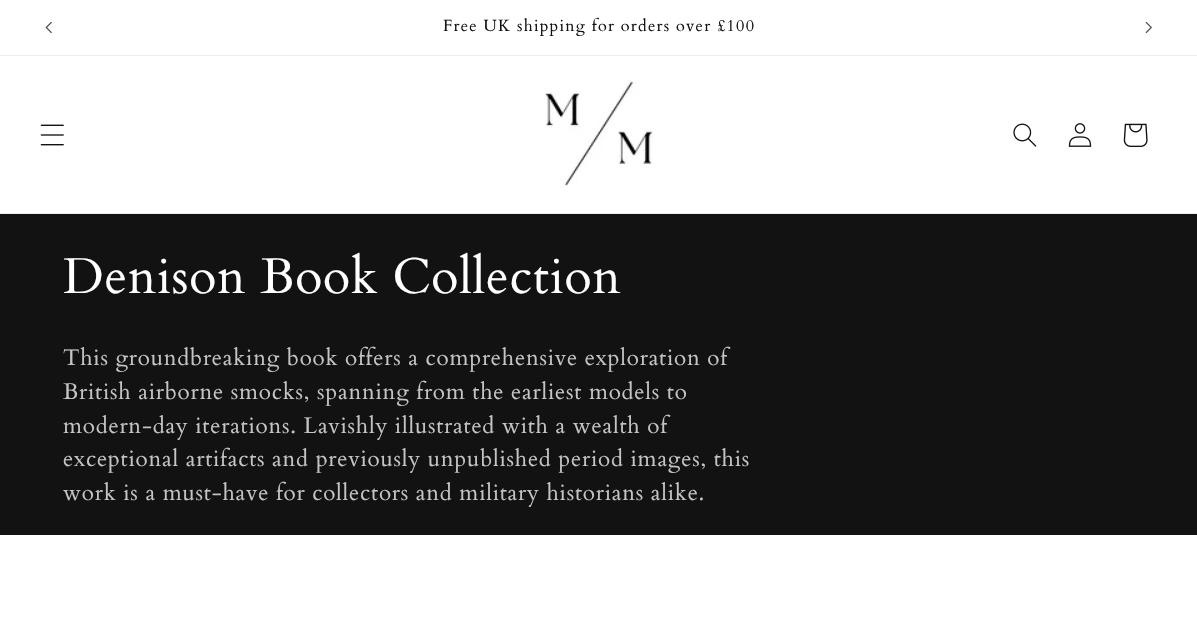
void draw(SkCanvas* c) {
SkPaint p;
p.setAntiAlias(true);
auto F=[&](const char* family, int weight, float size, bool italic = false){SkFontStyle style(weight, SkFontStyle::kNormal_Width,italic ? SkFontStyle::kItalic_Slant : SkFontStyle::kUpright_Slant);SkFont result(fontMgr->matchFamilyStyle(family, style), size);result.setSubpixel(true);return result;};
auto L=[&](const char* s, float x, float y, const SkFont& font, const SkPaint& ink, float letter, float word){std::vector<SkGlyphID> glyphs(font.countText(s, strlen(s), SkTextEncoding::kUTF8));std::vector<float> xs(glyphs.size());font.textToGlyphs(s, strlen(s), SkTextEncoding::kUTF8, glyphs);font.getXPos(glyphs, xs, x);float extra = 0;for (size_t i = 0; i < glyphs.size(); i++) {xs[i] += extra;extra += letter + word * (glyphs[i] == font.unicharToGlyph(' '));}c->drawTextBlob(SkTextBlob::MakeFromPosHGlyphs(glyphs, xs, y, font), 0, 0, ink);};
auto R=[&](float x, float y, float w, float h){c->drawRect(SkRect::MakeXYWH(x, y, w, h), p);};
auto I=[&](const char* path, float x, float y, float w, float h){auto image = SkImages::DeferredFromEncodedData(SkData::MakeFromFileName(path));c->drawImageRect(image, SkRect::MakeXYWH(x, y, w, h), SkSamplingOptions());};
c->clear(0xffffffff);
p.setColor(0xffececec);
R(0,55,1197,1);
I("1.png",45,21,7,12);
auto f1 = F("Cardo",400,16.25);
p.setColor(0xff121212);
L("Free UK shipping for orders over £100",443,31,f1,p,1.25,0);
I("2.png",1145,22,7,11);
p.setColor(0xffececec);
R(0,213,1197,1);
I("3.png",40,124,24,22);
I("4.png",545,81,108,105);
I("5.png",1013,123,24,24);
I("6.png",1068,123,24,24);
I("7.png",1123,123,25,24);
p.setColor(0xff121212);
R(0,214,1197,321);
auto f2 = F("Cardo",400,50);
p.setColor(0xffffffff);
L("Denison Book Collection",63,293,f2,p,.75,0);
auto f3 = F("Cardo",400,22.5);
p.setColor(0xffc4c4c4);
L("This groundbreaking book offers a comprehensive exploration of",63,365,f3,p,.75,0);
L("British airborne smocks, spanning from the earliest models to",63,399,f3,p,.75,0);
L("modern-day iterations. Lavishly illustrated with a wealth of",63,433,f3,p,.75,0);
L("exceptional artifacts and previously unpublished period images, this",63,466,f3,p,.75,0);
L("work is a must-have for collectors and military historians alike.",63,500,f3,p,.75,0);
}
